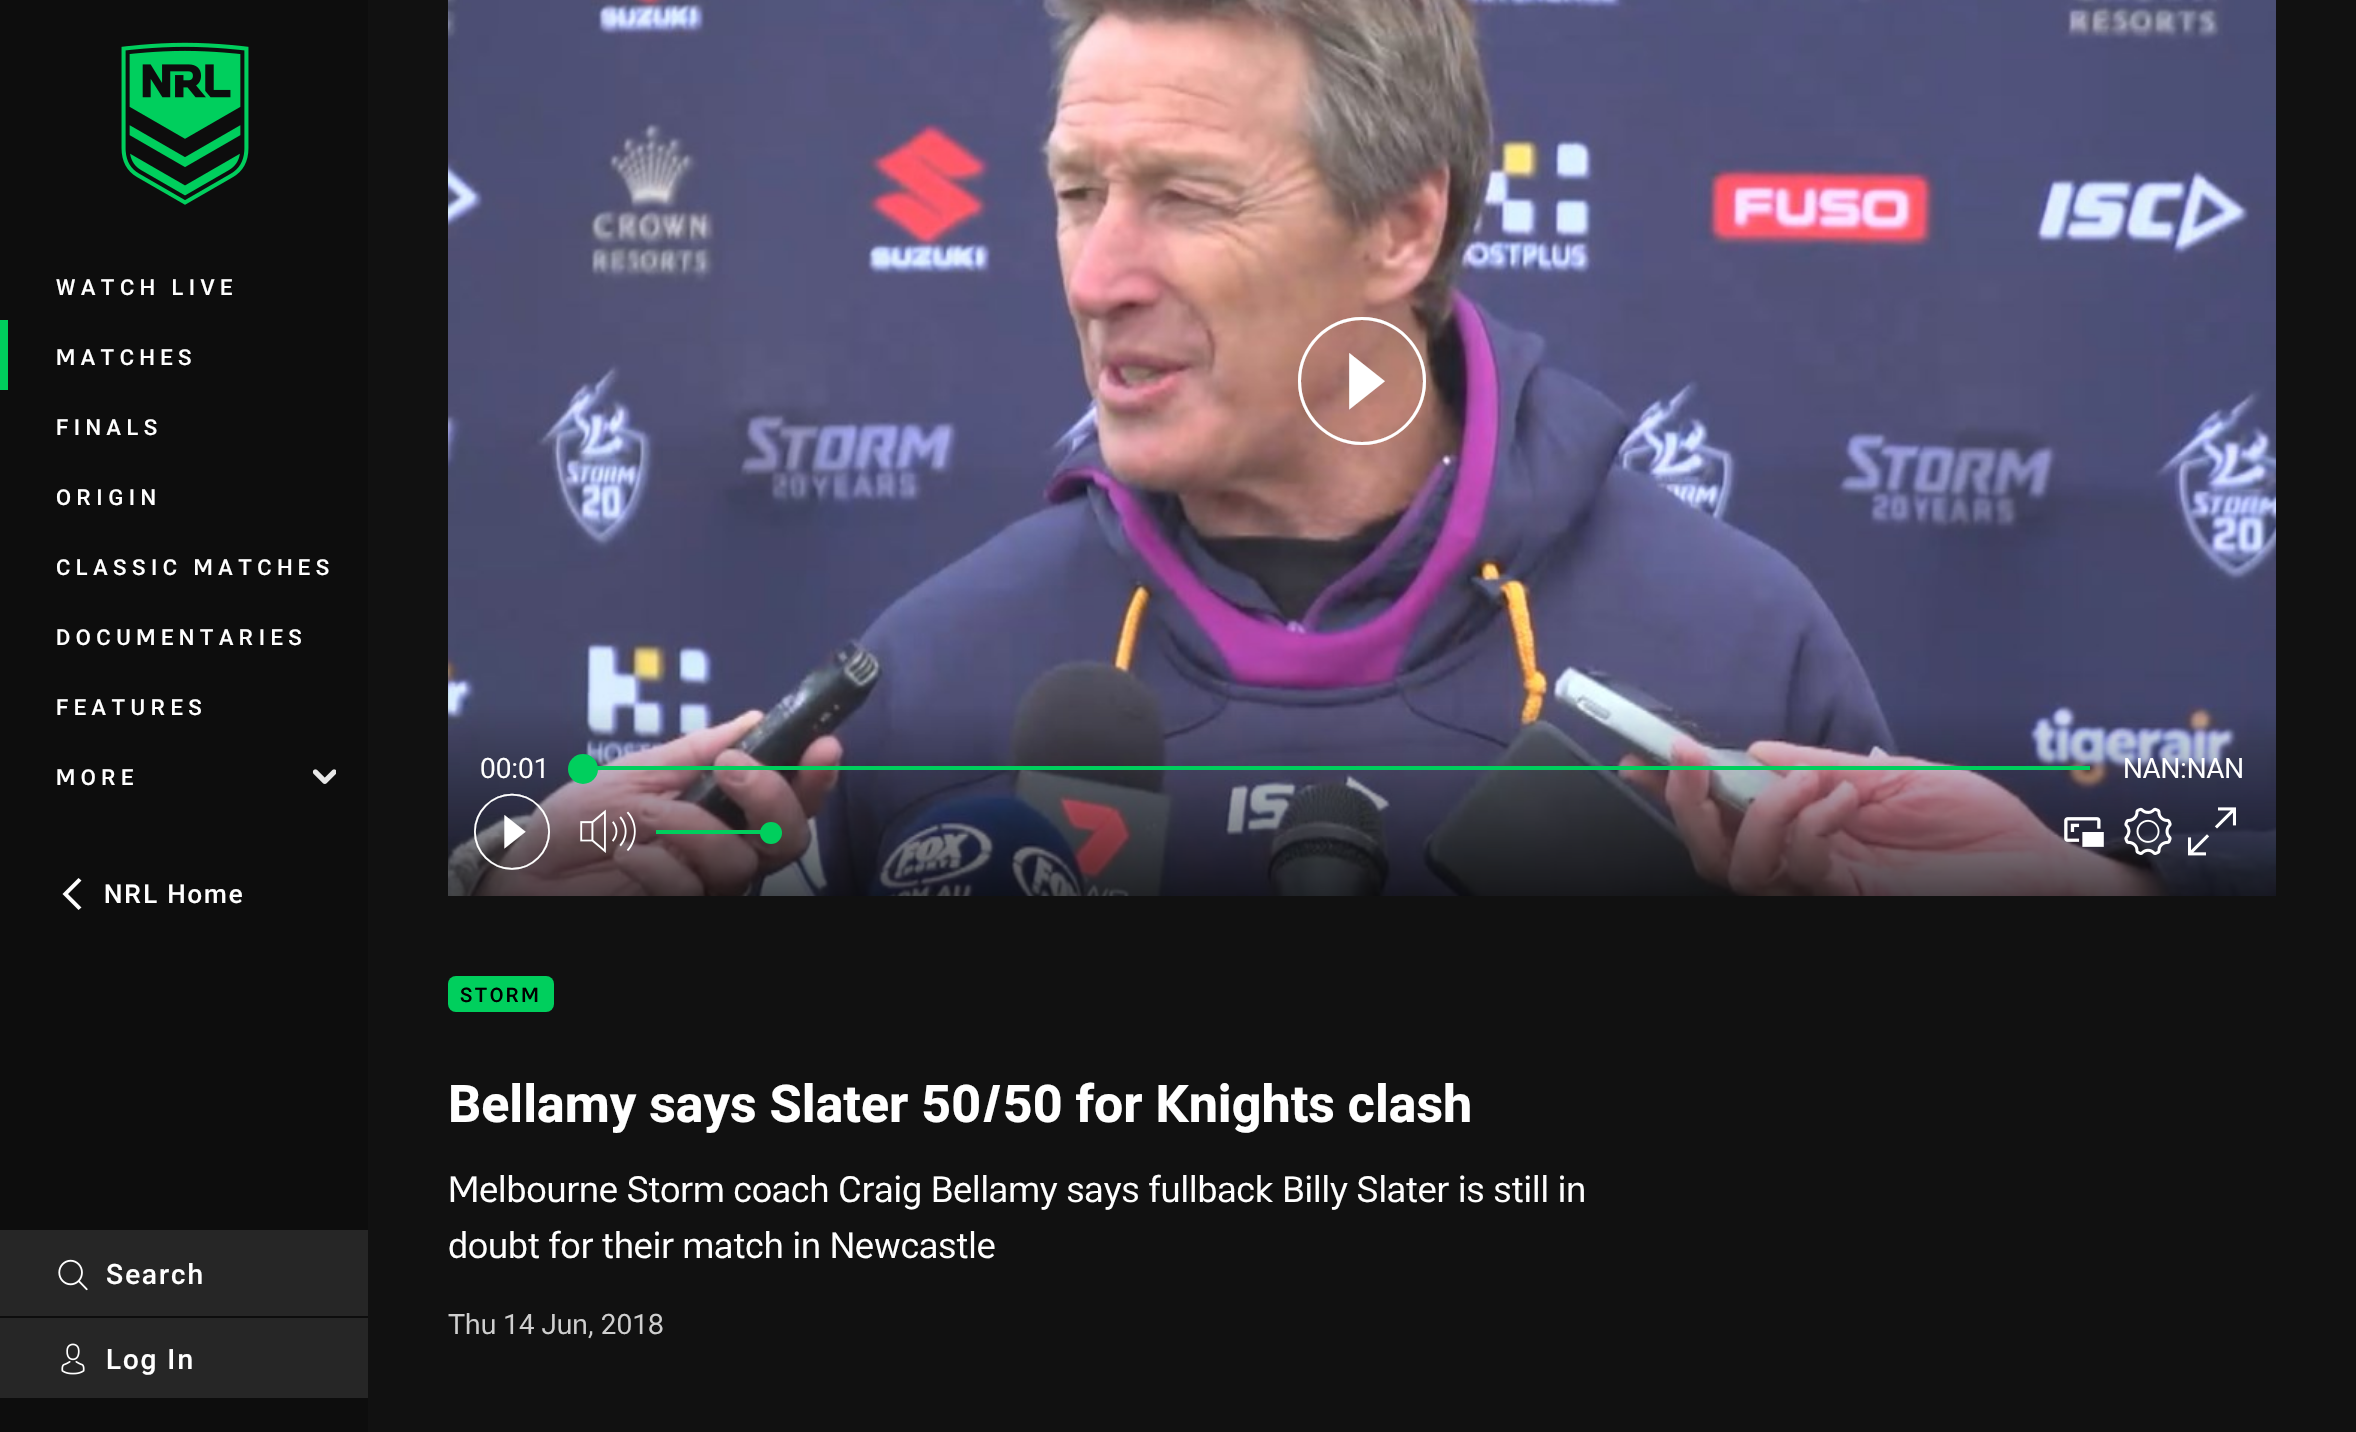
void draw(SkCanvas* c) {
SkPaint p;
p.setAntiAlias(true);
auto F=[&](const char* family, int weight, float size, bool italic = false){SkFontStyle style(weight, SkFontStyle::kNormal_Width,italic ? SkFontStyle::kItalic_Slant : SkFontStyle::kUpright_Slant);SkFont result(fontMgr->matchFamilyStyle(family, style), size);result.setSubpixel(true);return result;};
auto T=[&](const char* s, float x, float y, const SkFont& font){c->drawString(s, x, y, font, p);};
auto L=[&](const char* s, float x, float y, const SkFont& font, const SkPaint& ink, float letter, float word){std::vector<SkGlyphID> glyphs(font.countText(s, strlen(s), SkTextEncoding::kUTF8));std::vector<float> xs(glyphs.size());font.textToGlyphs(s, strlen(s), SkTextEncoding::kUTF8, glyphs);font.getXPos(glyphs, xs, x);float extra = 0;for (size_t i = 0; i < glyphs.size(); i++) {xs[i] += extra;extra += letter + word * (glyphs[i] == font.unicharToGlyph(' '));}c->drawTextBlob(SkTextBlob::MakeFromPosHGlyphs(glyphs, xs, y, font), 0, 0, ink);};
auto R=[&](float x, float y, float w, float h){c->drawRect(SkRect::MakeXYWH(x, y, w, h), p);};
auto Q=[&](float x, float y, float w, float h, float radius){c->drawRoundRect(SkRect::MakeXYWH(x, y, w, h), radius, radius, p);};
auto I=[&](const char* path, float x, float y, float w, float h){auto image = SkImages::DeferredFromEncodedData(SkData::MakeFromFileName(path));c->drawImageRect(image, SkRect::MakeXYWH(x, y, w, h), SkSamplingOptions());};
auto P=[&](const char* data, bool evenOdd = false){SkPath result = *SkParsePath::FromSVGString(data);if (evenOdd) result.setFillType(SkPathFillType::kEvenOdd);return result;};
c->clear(0xff111111);
p.setColor(0xff0d0d0d);
R(0,0,368,1432);
I("1.png",121,42,128,163);
auto f1 = F("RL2",500,22);
p.setColor(0xffffffff);
L("WATCH LIVE",56,295,f1,p,5.5,0);
p.setColor(0xff00cf5d);
R(0,320,8,70);
p.setColor(0xffffffff);
L("MATCHES",56,365,f1,p,5.5,0);
L("FINALS",56,435,f1,p,5.5,0);
L("ORIGIN",56,505,f1,p,5.5,0);
L("CLASSIC MATCHES",56,575,f1,p,5.5,0);
L("DOCUMENTARIES",56,645,f1,p,5.5,0);
L("FEATURES",56,715,f1,p,5.5,0);
L("MORE",56,785,f1,p,5.5,0);
I("2.png",312,769,24,15);
c->drawPath(P("M62.5 894l16-16l3 2.5l-13.5 13.5l13.5 13.5l-3 2.5z"),p);
auto f2 = F("RL2",500,26);
L("NRL Home",104,903,f2,p,2,0);
p.setColor(0xff262626);
R(0,1230,368,86);
I("3.png",58,1259,30,32);
auto f3 = F("RL2",500,28);
p.setColor(0xffffffff);
L("Search",106,1284,f3,p,2,0);
p.setColor(0xff262626);
R(0,1318,368,80);
I("4.png",61,1343,24,32);
p.setColor(0xffffffff);
L("Log In",106,1369,f3,p,2,0);
I("5.png",448,0,1828,896);
auto f4 = F("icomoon",400,128);
T(">",1298,437,f4);
auto f5 = F("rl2",400,28);
T("00:01",480,778,f5);
p.setColor(0xff00cf5d);
R(597,766,1493,4);
c->drawCircle(583,769,15,p);
p.setColor(0xffffffff);
T("NAN:NAN",2123,778,f5);
auto f6 = F("icomoon",400,76);
T(">",474,865,f6);
I("6.png",580,809,56,44);
p.setColor(0xff00cf5d);
R(656,830,105,4);
c->drawCircle(771,833,11,p);
I("7.png",2064,817,40,30);
I("8.png",2124,807,48,48);
I("9.png",2188,807,48,49);
Q(448,976,106,36,8);
auto f7 = F("RL2",500,20);
p.setColor(0xff000000);
L("STORM",460,1002,f7,p,2.5,0);
auto f8 = F("RL2",700,52);
p.setColor(0xffffffff);
T("Bellamy says Slater 50/50 for Knights clash",448,1122,f8);
auto f9 = F("rl2",400,36);
T("Melbourne Storm coach Craig Bellamy says fullback Billy Slater is still in",448,1202,f9);
T("doubt for their match in Newcastle",448,1258,f9);
p.setColor(0xffcfcfcf);
T("Thu 14 Jun, 2018",448,1334,f5);
}
